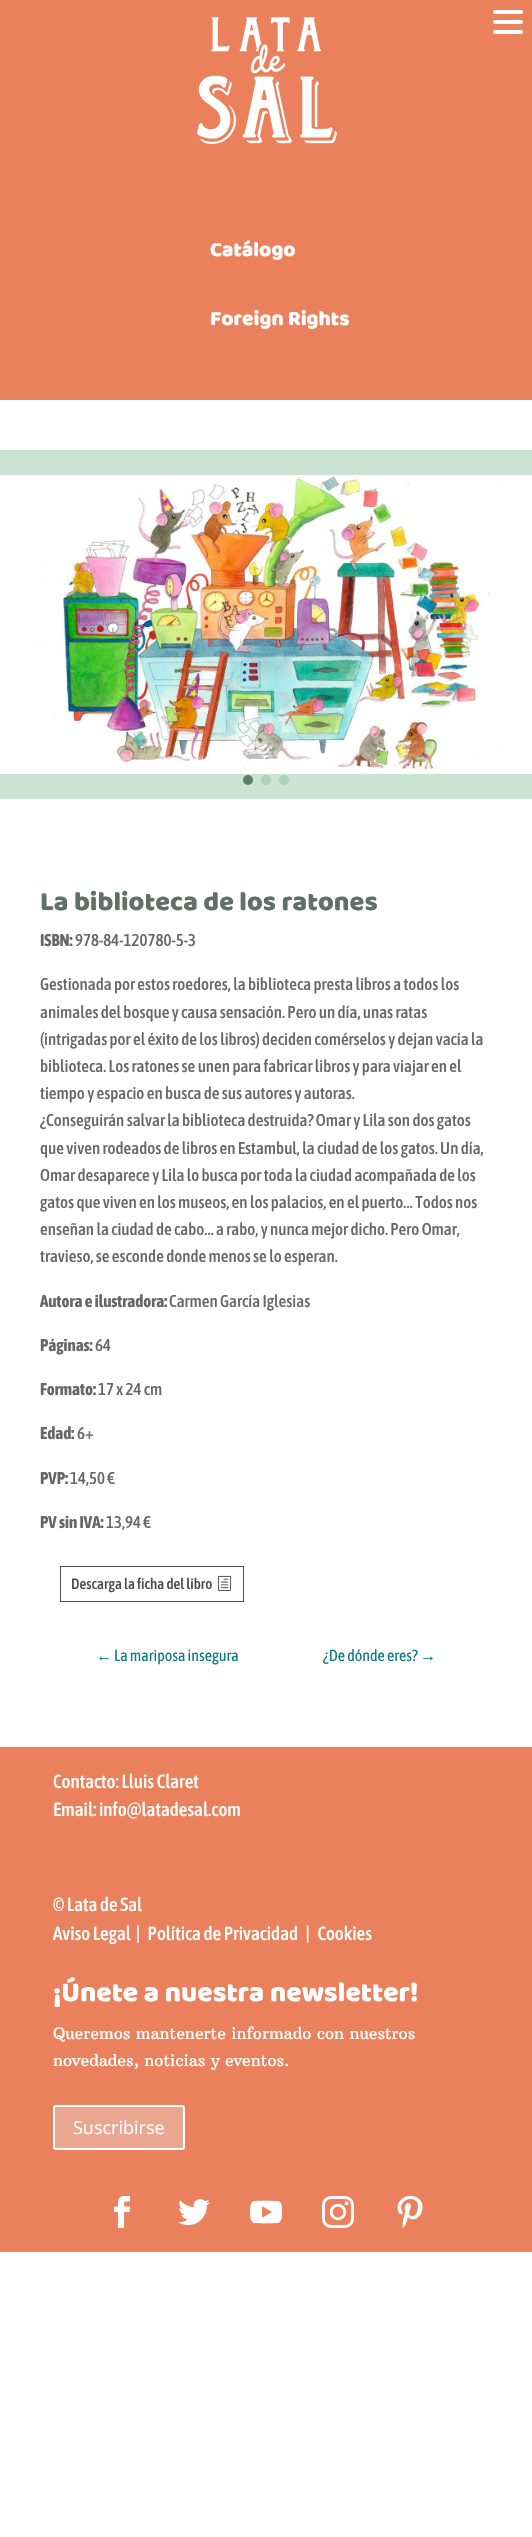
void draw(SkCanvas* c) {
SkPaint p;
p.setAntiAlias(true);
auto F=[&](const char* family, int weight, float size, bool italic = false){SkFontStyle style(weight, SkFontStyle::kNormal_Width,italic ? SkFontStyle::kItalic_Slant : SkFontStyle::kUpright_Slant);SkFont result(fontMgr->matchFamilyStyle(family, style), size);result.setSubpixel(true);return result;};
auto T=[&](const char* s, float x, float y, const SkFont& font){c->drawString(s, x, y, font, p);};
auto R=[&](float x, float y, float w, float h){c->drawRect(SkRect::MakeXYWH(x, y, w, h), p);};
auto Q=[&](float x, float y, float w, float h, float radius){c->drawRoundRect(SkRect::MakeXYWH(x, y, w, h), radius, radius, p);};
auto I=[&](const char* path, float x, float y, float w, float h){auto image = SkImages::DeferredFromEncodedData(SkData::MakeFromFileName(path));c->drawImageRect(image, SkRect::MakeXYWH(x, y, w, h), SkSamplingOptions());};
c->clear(0xffffffff);
p.setColor(0xffea815c);
R(0,0,532,400);
p.setColor(0xffffffff);
Q(493,10,30,4,2);
Q(493,20,30,4,2);
Q(493,30,30,4,2);
I("1.png",197,17,140,127);
auto f1 = F("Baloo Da",400,21);
T("Catálogo",210,256,f1);
T("Foreign Rights",210,325,f1);
p.setColor(0xffcae3d3);
R(0,450,532,349);
p.setColor(0xffffffff);
R(0,475,532,299);
I("2.png",39,475,461,299);
p.setColor(0xff5a8269);
c->drawCircle(248,780,5,p);
p.setColor(0xffacd2ba);
c->drawCircle(266,780,5,p);
c->drawCircle(284,780,5,p);
auto f2 = F("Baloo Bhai",400,27);
p.setColor(0xff617066);
T("La biblioteca de los ratones",40,910,f2);
auto f3 = F("Asap Condensed",700,17);
p.setColor(0xff666666);
T("ISBN:",40,946,f3);
auto f4 = F("Asap Condensed",500,17);
T("978-84-120780-5-3",75,946,f4);
T("Gestionada por estos roedores, la biblioteca presta libros a todos los",40,990,f4);
T("animales del bosque y causa sensación. Pero un día, unas ratas",40,1018,f4);
T("(intrigadas por el éxito de los libros) deciden comérselos y dejan vacía la",40,1045,f4);
T("biblioteca. Los ratones se unen para fabricar libros y para viajar en el",40,1072,f4);
T("tiempo y espacio en busca de sus autores y autoras.",40,1099,f4);
T("¿Conseguirán salvar la biblioteca destruida? Omar y Lila son dos gatos",40,1126,f4);
T("que viven rodeados de libros en Estambul, la ciudad de los gatos. Un día,",40,1154,f4);
T("Omar desaparece y Lila lo busca por toda la ciudad acompañada de los",40,1181,f4);
T("gatos que viven en los museos, en los palacios, en el puerto… Todos nos",40,1208,f4);
T("enseñan la ciudad de cabo… a rabo, y nunca mejor dicho. Pero Omar,",40,1235,f4);
T("travieso, se esconde donde menos se lo esperan.",40,1262,f4);
T("Autora e ilustradora:",40,1307,f3);
T("Carmen García Iglesias",169,1307,f4);
T("Páginas:",40,1351,f3);
T("64",95,1351,f4);
T("Formato:",40,1395,f3);
T("17 x 24 cm",98,1395,f4);
T("Edad:",40,1439,f3);
T("6+",77,1439,f4);
T("PVP:",40,1484,f3);
T("14,50 €",70,1484,f4);
T("PV sin IVA:",40,1528,f3);
T("13,94 €",106,1528,f4);
p.setStroke(true);
p.setStrokeWidth(1);
p.setColor(0xff494949);
c->drawRect(SkRect::MakeXYWH(60.5,1566.5,183,35),p);
auto f5 = F("Asap Condensed",500,15);
p.setStroke(false);
T("Descarga la ficha del libro",71,1589,f5);
I("3.png",217,1575,15,16);
auto f6 = F("Liberation Sans",400,16);
p.setColor(0xff0a7884);
T("←",96,1661,f6);
auto f7 = F("Asap Condensed",400,16);
T("La mariposa insegura",114,1661,f7);
T("¿De dónde eres?",323,1661,f7);
T("→",420,1661,f6);
p.setColor(0xffea815c);
R(0,1747,532,505);
auto f8 = F("Asap Condensed",500,19);
p.setColor(0xffffffff);
T("Contacto: Lluis Claret",53,1788,f8);
T("Email: info@latadesal.com",53,1816,f8);
T("© Lata de Sal",53,1911,f8);
T("Aviso Legal  |   Política de Privacidad   |   Cookies",53,1940,f8);
auto f9 = F("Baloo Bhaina",400,28);
T("¡Únete a nuestra newsletter!",53,2001,f9);
auto f10 = F("Arbutus Slab",400,16);
T("Queremos mantenerte informado con nuestros",53,2039,f10);
T("novedades, noticias y eventos.",53,2066,f10);
p.setColor(0xffeaa78f);
c->drawRoundRect(SkRect::MakeXYWH(54,2106,130,43),2,2,p);
p.setStroke(true);
p.setStrokeWidth(2);
p.setColor(0xffffffff);
c->drawRoundRect(SkRect::MakeXYWH(54,2106,130,43),2,2,p);
auto f11 = F("Open Sans",400,18);
p.setStroke(false);
T("Suscribirse",73,2134,f11);
I("4.png",114,2196,17,32);
I("5.png",178,2199,32,26);
I("6.png",250,2200,32,24);
I("7.png",322,2196,32,32);
I("8.png",397,2196,26,32);
}
